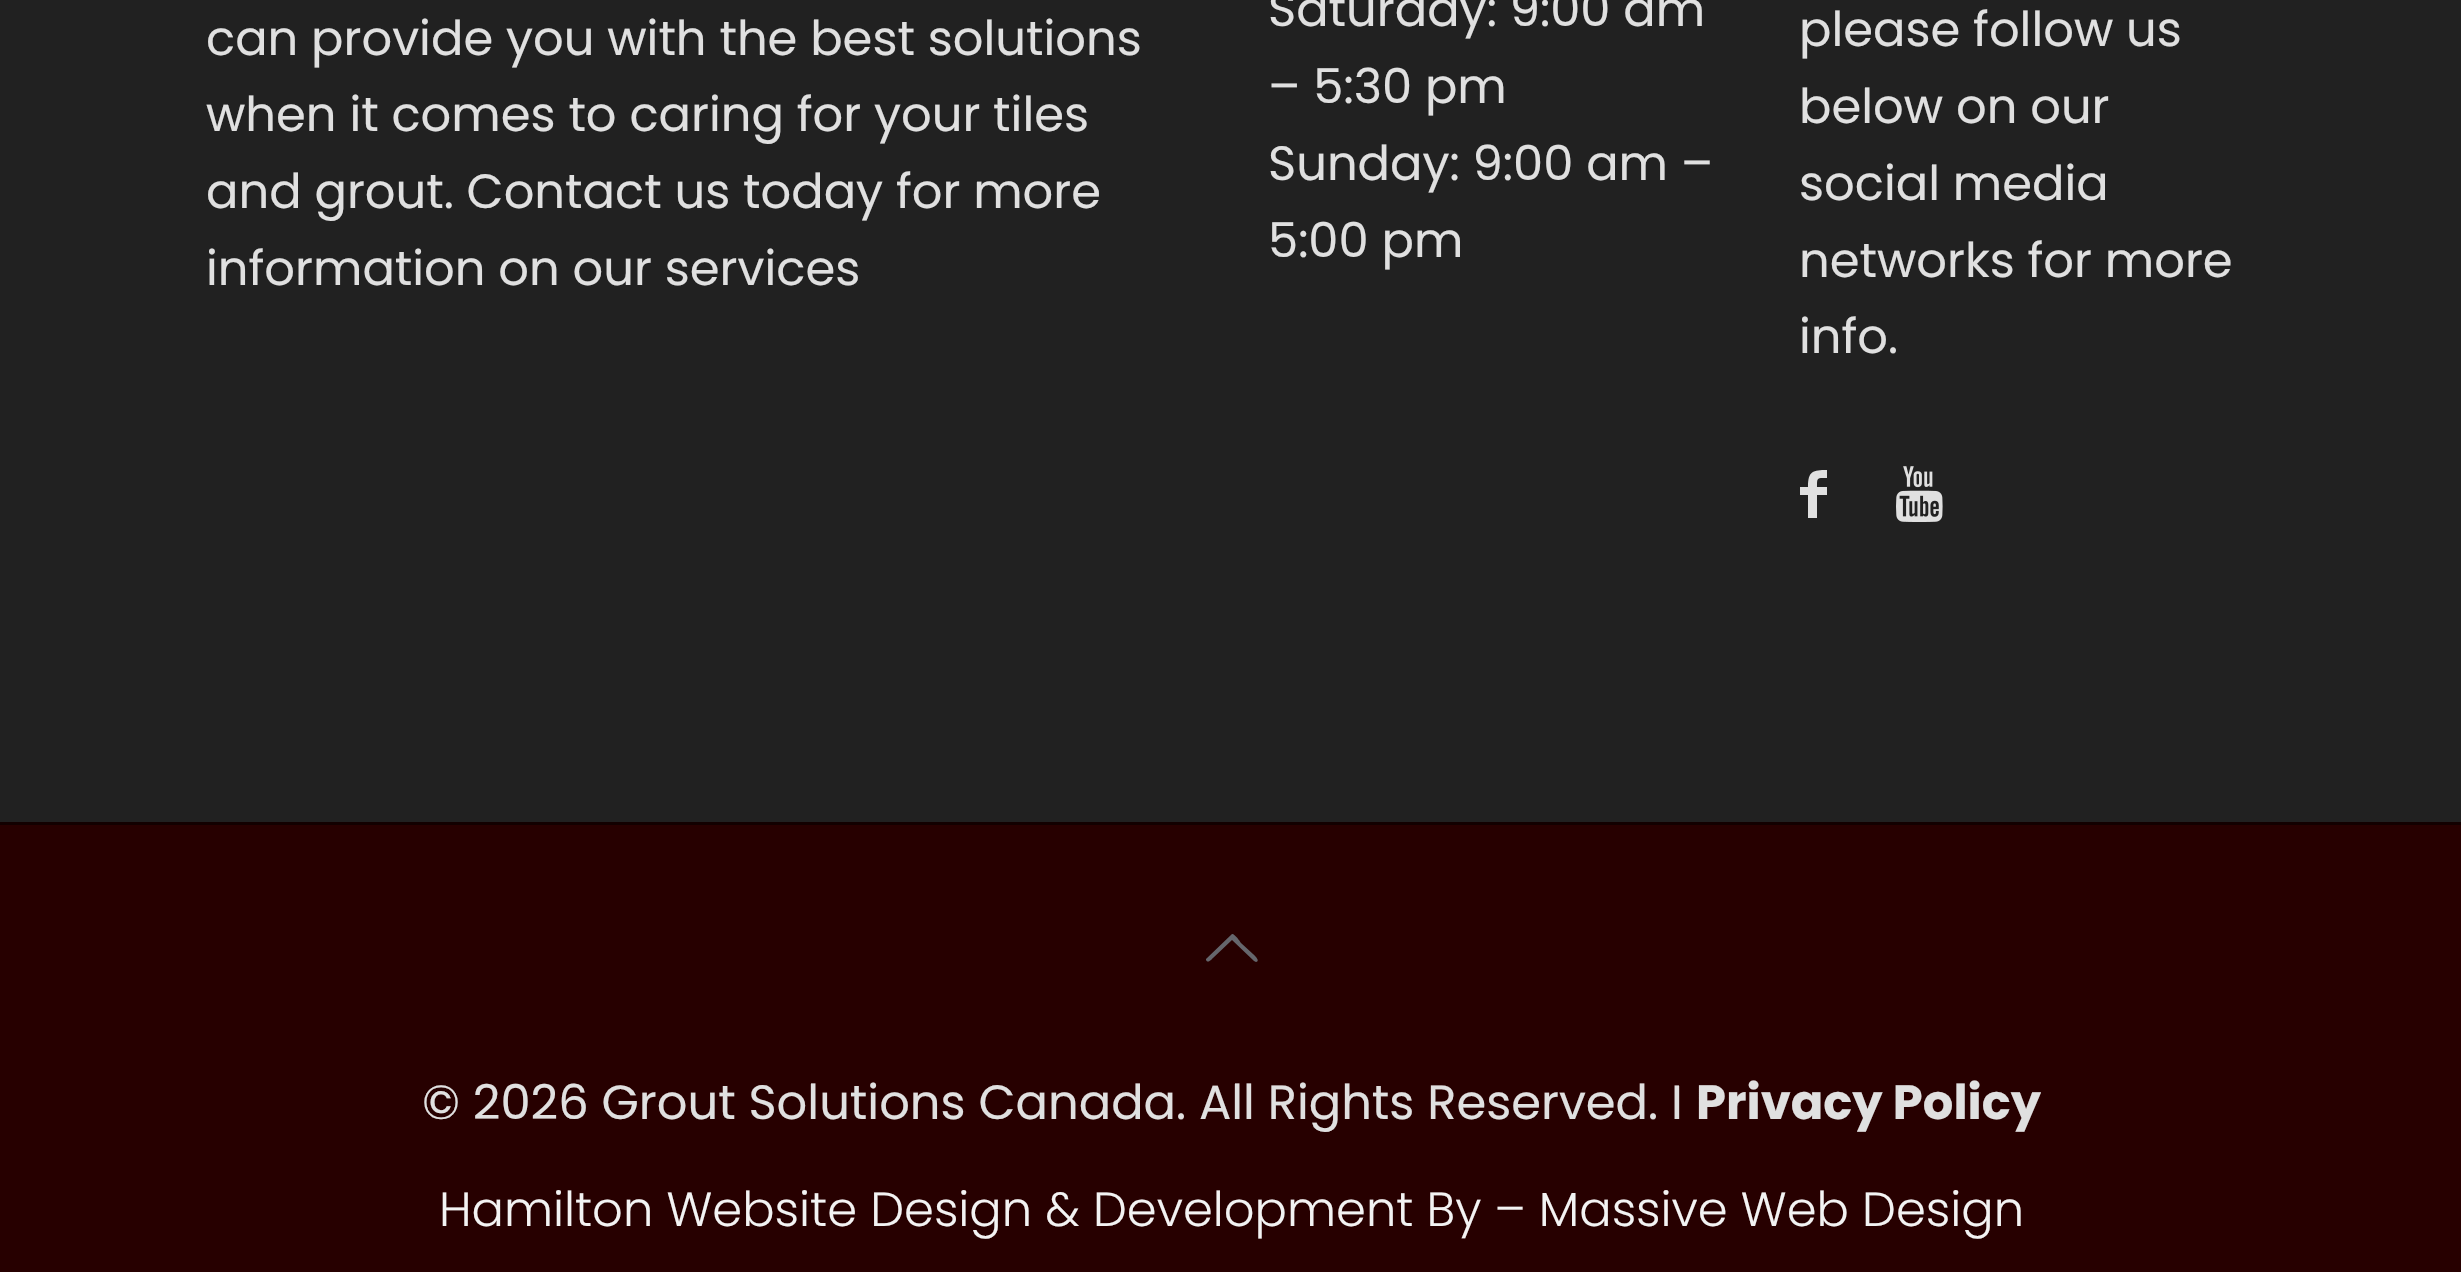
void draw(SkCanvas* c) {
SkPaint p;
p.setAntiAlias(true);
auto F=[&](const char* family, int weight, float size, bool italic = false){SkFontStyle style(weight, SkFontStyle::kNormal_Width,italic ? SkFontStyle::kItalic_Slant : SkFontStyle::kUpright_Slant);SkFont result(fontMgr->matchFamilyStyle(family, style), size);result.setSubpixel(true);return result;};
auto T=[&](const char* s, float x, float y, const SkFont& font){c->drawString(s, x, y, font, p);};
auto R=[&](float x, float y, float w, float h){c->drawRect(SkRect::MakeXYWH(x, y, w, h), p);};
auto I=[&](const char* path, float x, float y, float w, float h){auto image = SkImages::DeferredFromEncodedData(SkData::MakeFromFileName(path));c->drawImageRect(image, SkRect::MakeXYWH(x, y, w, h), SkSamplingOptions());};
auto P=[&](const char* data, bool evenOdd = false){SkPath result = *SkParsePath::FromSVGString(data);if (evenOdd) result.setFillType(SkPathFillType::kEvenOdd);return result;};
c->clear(0xff212121);
auto f1 = F("Poppins",400,48);
p.setColor(0xffe0e0e0);
T("can provide you with the best solutions",206,55,f1);
T("when it comes to caring for your tiles",206,131,f1);
T("and grout. Contact us today for more",206,208,f1);
T("information on our services",206,285,f1);
T("Saturday: 9:00 am",1268,26,f1);
T("– 5:30 pm",1268,103,f1);
T("Sunday: 9:00 am –",1268,180,f1);
T("5:00 pm",1268,257,f1);
T("please follow us",1799,46,f1);
T("below on our",1799,123,f1);
T("social media",1799,200,f1);
T("networks for more",1799,277,f1);
T("info.",1799,353,f1);
c->drawPath(P("M1827 478c-10 0-10-1-10 9h10v8h-10v23h-9v-23h-8v-8h8c0-16 5-17 19-17z"),p);
I("1.png",1896,466,47,56);
p.setColor(0xff270000);
R(0,825,2461,447);
p.setColor(0xff120000);
R(0,822,2461,3);
p.setColor(0xff65666c);
c->drawPath(P("M1254 961l-22-21l-19 18c-1 1-5 6-7 2v-1l26-25c2-1 8 7 9 9l12 11c1 1 8 7 3 8z"),p);
p.setColor(0xffe0e0e0);
T("© 2026 Grout Solutions Canada. All Rights Reserved. I",422,1119,f1);
auto f2 = F("Poppins",700,48);
T("Privacy Policy",1696,1119,f2);
auto f3 = F("Poppins",300,48);
p.setColor(0xfff3f3f3);
T("Hamilton Website Design & Development By – Massive Web Design",439,1226,f3);
}
